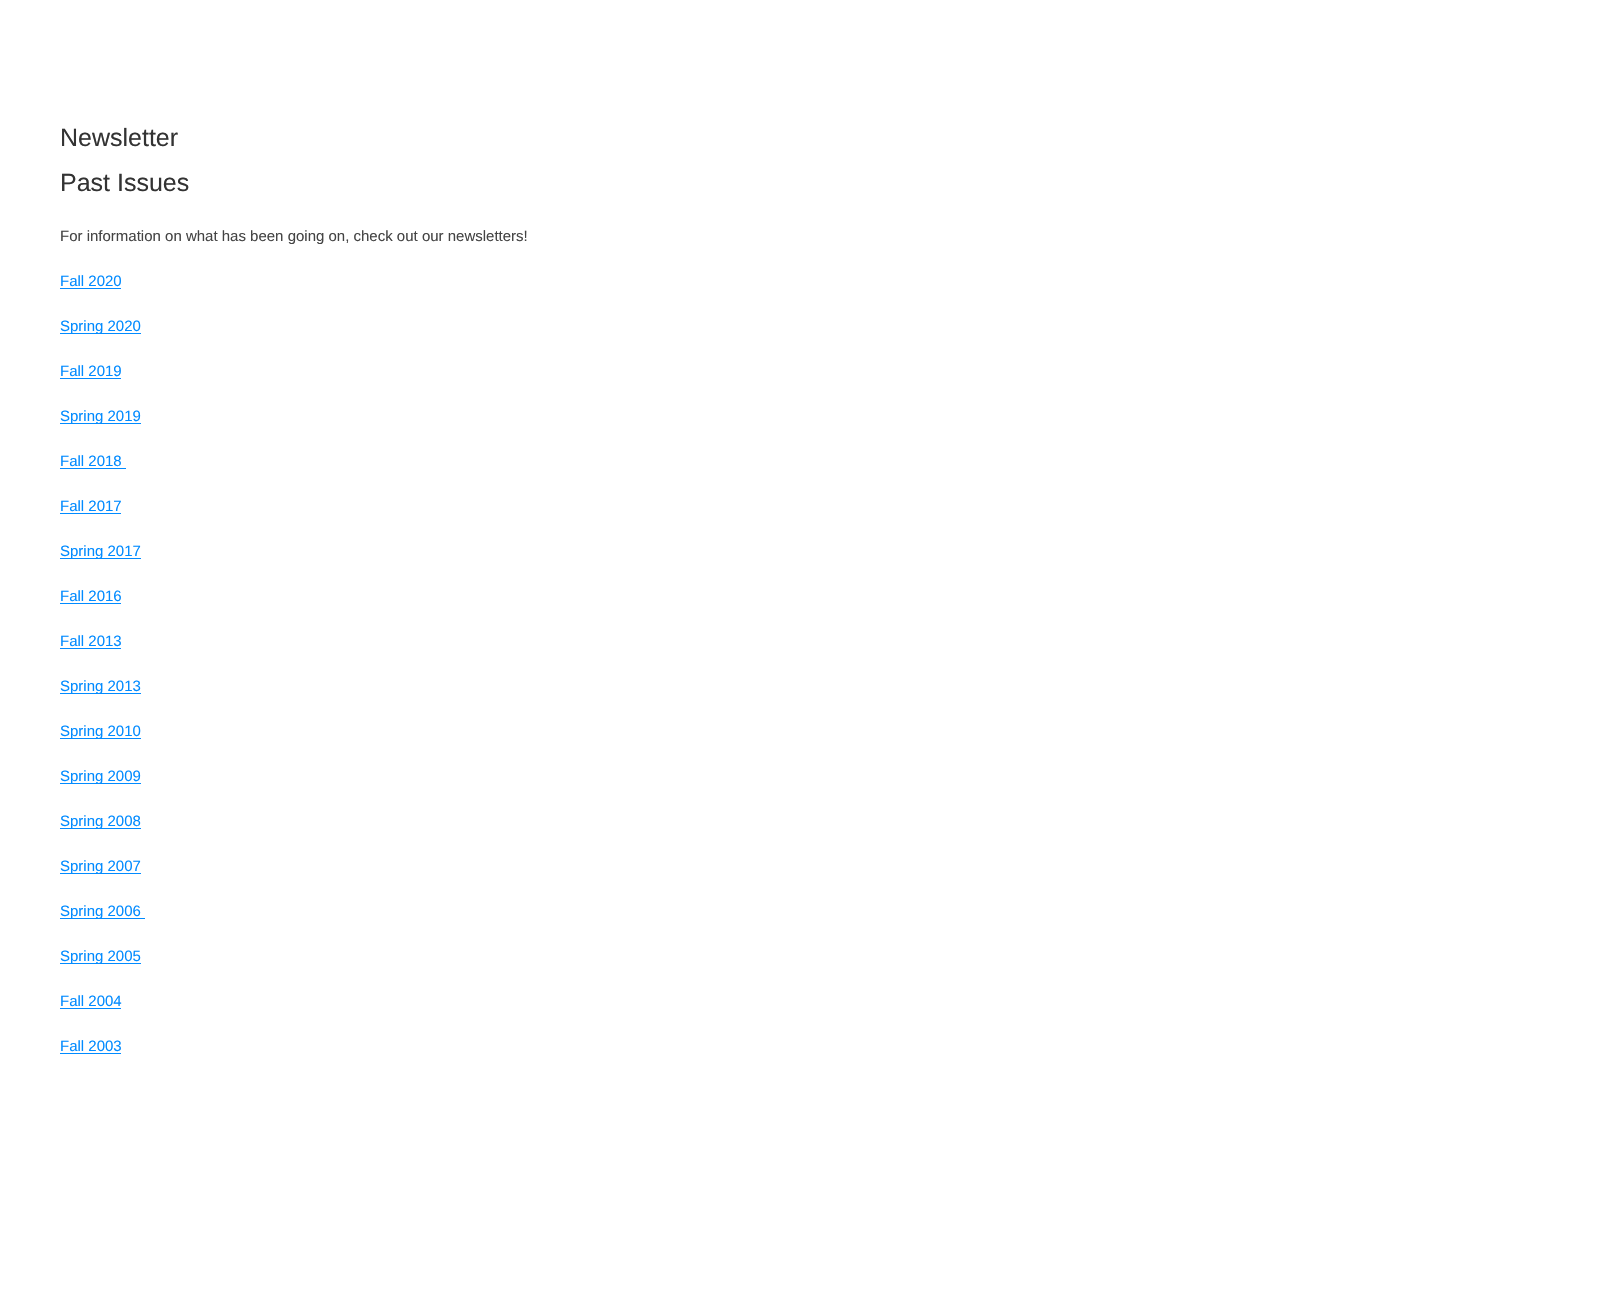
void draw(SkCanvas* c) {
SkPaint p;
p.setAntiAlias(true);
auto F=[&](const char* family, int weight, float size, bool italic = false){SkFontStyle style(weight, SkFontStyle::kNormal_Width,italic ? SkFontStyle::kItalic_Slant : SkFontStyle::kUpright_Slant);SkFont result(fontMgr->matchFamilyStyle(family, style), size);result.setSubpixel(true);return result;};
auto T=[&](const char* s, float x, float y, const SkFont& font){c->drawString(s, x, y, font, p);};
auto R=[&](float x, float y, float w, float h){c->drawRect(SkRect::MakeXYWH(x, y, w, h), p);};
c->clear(0xffffffff);
auto f1 = F("Liberation Sans",400,25);
p.setColor(0xff333333);
T("Newsletter",60,146,f1);
T("Past Issues",60,191,f1);
auto f2 = F("Liberation Sans",400,15);
p.setColor(0xff444444);
T("For information on what has been going on, check out our newsletters!",60,241,f2);
p.setColor(0xff028bff);
T("Fall 2020",60,286,f2);
R(60,288,61,1);
R(60,333,81,1);
T("Spring 2020",60,331,f2);
T("Fall 2019",60,376,f2);
R(60,378,61,1);
R(60,423,81,1);
T("Spring 2019",60,421,f2);
T("Fall 2018",60,466,f2);
R(60,468,66,1);
T("Fall 2017",60,511,f2);
R(60,513,61,1);
R(60,558,81,1);
T("Spring 2017",60,556,f2);
T("Fall 2016",60,601,f2);
R(60,603,61,1);
T("Fall 2013",60,646,f2);
R(60,648,61,1);
R(60,693,81,1);
T("Spring 2013",60,691,f2);
R(60,738,81,1);
T("Spring 2010",60,736,f2);
R(60,783,81,1);
T("Spring 2009",60,781,f2);
R(60,828,81,1);
T("Spring 2008",60,826,f2);
R(60,873,81,1);
T("Spring 2007",60,871,f2);
R(60,918,85,1);
T("Spring 2006",60,916,f2);
R(60,963,81,1);
T("Spring 2005",60,961,f2);
T("Fall 2004",60,1006,f2);
R(60,1008,61,1);
T("Fall 2003",60,1051,f2);
R(60,1053,61,1);
}
